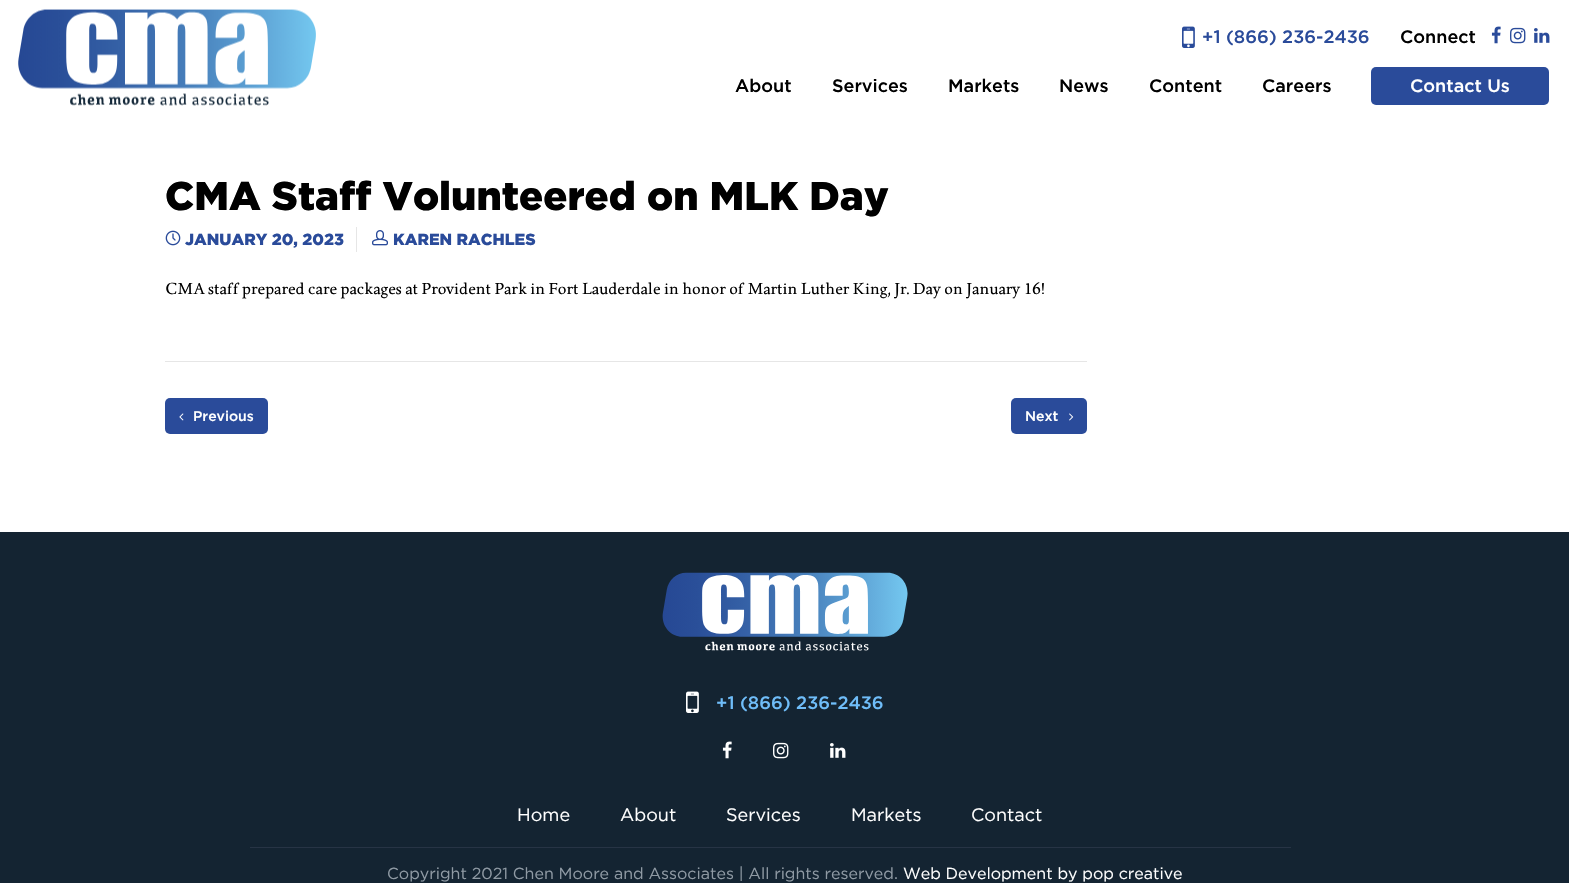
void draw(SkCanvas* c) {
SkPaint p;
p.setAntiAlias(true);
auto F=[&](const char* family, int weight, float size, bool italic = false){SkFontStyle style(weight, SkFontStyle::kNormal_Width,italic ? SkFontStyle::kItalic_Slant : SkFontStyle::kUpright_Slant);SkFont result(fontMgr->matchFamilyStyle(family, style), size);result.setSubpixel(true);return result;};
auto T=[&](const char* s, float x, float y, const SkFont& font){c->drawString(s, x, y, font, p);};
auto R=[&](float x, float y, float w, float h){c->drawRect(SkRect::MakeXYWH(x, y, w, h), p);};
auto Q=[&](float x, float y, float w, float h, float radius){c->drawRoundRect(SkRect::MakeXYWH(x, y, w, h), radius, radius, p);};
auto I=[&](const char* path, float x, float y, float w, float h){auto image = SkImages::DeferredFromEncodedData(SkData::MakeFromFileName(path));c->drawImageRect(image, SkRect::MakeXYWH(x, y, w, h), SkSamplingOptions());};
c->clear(0xffffffff);
I("1.png",1182,26,13,22);
auto f1 = F("Gotham",500,18);
p.setColor(0xff2a4b9a);
T("+1 (866) 236-2436",1202,43,f1);
p.setColor(0xff000000);
T("Connect",1400,43,f1);
I("2.png",1491,26,10,18);
I("3.png",1510,27,16,17);
I("4.png",1534,28,16,15);
I("5.png",18,9,298,97);
T("About",735,92,f1);
T("Services",832,92,f1);
T("Markets",948,92,f1);
T("News",1059,92,f1);
T("Content",1149,92,f1);
T("Careers",1262,92,f1);
p.setColor(0xff2a4b9a);
Q(1371,67,178,38,5);
p.setColor(0xffffffff);
T("Contact Us",1410,92,f1);
auto f2 = F("Gotham",900,40);
p.setColor(0xff000000);
T("CMA Staff Volunteered on MLK Day",165,210,f2);
p.setColor(0xffe6e6e6);
R(356,227,1,25);
I("6.png",165,230,16,16);
auto f3 = F("Gotham",900,16);
p.setColor(0xff2a4b9a);
T("JANUARY 20, 2023",185,245,f3);
I("7.png",372,230,16,16);
T("KAREN RACHLES",393,245,f3);
auto f4 = F("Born",400,16);
p.setColor(0xff000000);
T("CMA staff prepared care packages at Provident Park in Fort Lauderdale in honor of Martin Luther King, Jr. Day on January 16!",165,294,f4);
p.setColor(0xffe6e6e6);
R(165,361,922,1);
p.setColor(0xff2a4b9a);
Q(165,398,103,36,5);
I("8.png",179,413,5,8);
auto f5 = F("Gotham",500,14);
p.setColor(0xffffffff);
T("Previous",193,421,f5);
p.setColor(0xff2a4b9a);
Q(1011,398,76,36,5);
p.setColor(0xffffffff);
T("Next",1025,421,f5);
I("9.png",1069,413,5,8);
p.setColor(0xff142432);
R(0,532,1569,351);
I("10.png",662,572,246,79);
I("11.png",686,691,13,22);
p.setColor(0xff6fbdf9);
T("+1 (866) 236-2436",716,709,f1);
I("12.png",722,741,10,18);
I("13.png",773,742,16,17);
I("14.png",830,743,16,15);
auto f6 = F("Gotham",400,18);
p.setColor(0xffffffff);
T("Home",517,821,f6);
T("About",620,821,f6);
T("Services",726,821,f6);
T("Markets",851,821,f6);
T("Contact",971,821,f6);
p.setColor(0xff273445);
R(250,847,1041,1);
auto f7 = F("Gotham",400,16);
p.setColor(0xff8f9aa4);
T("Copyright 2021 Chen Moore and Associates | All rights reserved.",387,879,f7);
p.setColor(0xffffffff);
T("Web Development by pop creative",903,879,f7);
}
